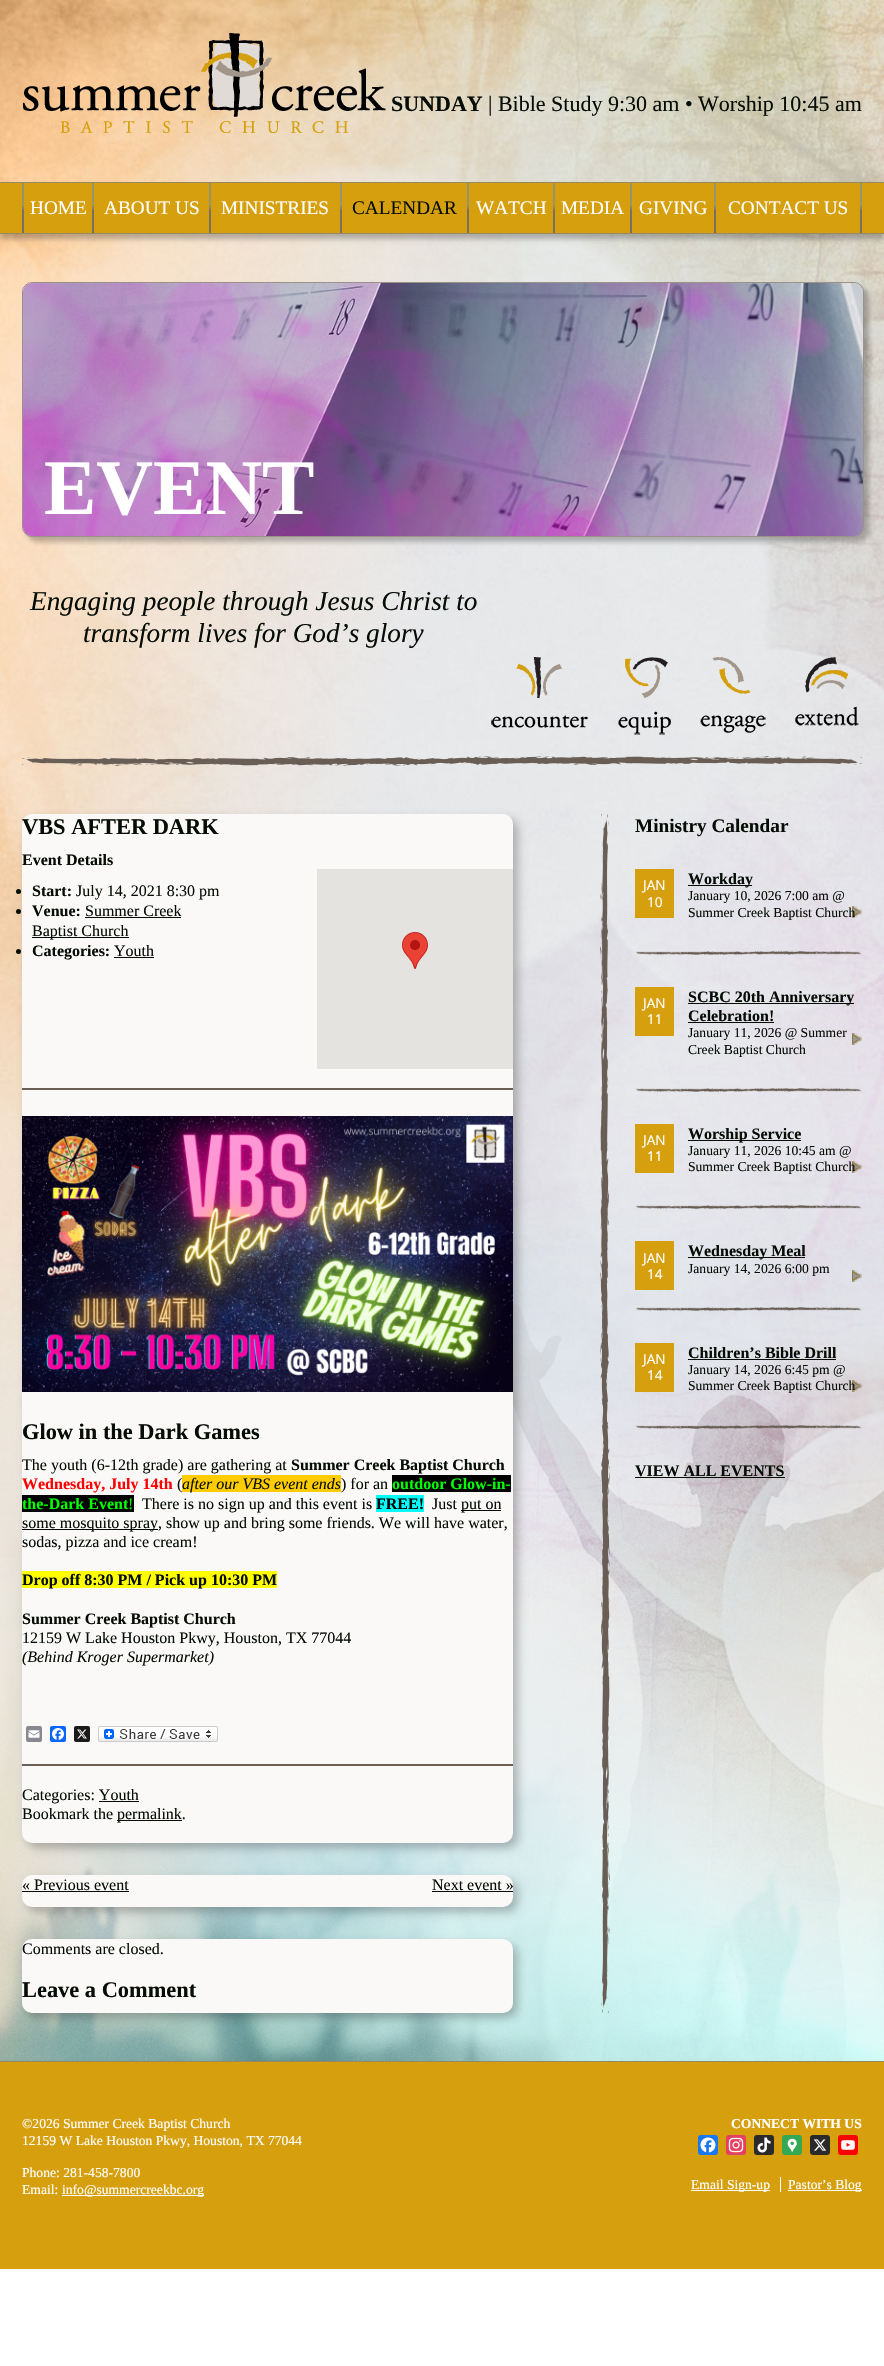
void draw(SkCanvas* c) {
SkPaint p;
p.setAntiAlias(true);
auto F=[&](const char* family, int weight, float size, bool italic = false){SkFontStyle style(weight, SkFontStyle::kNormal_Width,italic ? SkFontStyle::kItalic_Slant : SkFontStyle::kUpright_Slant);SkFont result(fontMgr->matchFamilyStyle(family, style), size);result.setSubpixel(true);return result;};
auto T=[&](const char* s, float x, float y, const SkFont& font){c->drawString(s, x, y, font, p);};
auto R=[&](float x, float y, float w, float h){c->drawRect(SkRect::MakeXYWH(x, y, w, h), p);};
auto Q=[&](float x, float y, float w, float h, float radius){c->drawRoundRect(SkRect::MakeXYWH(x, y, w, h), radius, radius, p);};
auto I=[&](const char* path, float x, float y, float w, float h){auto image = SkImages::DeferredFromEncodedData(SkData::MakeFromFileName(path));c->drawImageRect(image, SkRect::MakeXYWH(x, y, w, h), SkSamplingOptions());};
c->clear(0xffffffff);
I("1.png",0,0,884,2061);
I("2.png",22,32,364,101);
auto f1 = F("Liberation Serif",700,22);
p.setColor(0xff060d06);
T("SUNDAY",391,111,f1);
auto f2 = F("Liberation Serif",400,22);
T("| Bible Study 9:30 am • Worship 10:45 am",488,111,f2);
p.setColor(0x40000000);
p.setMaskFilter(SkMaskFilter::MakeBlur(kNormal_SkBlurStyle, 2.5));
c->drawRect(SkRect::MakeXYWH(0,187,884,52),p);
p.setMaskFilter(nullptr);
p.setColor(0xffd59f0e);
R(0,183,884,50);
p.setColor(0xff978962);
R(0,182,884,1);
R(0,233,884,1);
I("3.png",22,183,72,50);
auto f3 = F("Liberation Serif",400,19.25);
p.setColor(0xffffffff);
T("HOME",30,214,f3);
I("4.png",209,183,2,50);
T("ABOUT US",104,214,f3);
I("5.png",340,183,2,50);
T("MINISTRIES",221,214,f3);
I("4.png",467,183,2,50);
p.setColor(0xff060d06);
T("CALENDAR",352,214,f3);
I("4.png",553,183,2,50);
p.setColor(0xffffffff);
T("WATCH",476,214,f3);
I("6.png",630,183,2,50);
T("MEDIA",561,214,f3);
I("5.png",714,183,2,50);
T("GIVING",639,214,f3);
I("6.png",860,183,2,50);
T("CONTACT US",728,214,f3);
I("7.png",22,756,840,10);
p.setColor(0x40000000);
p.setMaskFilter(SkMaskFilter::MakeBlur(kNormal_SkBlurStyle, 2.5));
c->drawRoundRect(SkRect::MakeXYWH(27,287,842,255),10,10,p);
p.setMaskFilter(nullptr);
p.setStroke(true);
p.setStrokeWidth(1);
p.setColor(0xff9b9288);
c->drawRoundRect(SkRect::MakeXYWH(22.5,282.5,841,254),9.5,9.5,p);
I("8.png",23,283,840,253);
I("9.png",23,283,840,253);
auto f4 = F("Liberation Serif",700,78.5);
p.setStroke(false);
p.setColor(0xffffffff);
T("EVENT",44,514,f4);
auto f5 = F("Liberation Serif",400,27.25,true);
p.setColor(0xff060d06);
T("Engaging people through Jesus Christ to",30,610,f5);
T("transform lives for God’s glory",83,642,f5);
I("10.png",491,657,97,71);
I("11.png",618,657,53,78);
I("12.png",700,657,66,76);
I("13.png",795,657,64,69);
I("14.png",600,814,10,1199);
p.setColor(0x40000000);
p.setMaskFilter(SkMaskFilter::MakeBlur(kNormal_SkBlurStyle, 5));
c->drawRoundRect(SkRect::MakeXYWH(27,819,491,1029),10,10,p);
p.setMaskFilter(nullptr);
p.setColor(0xfffaf9f7);
Q(22,814,491,1029,10);
auto f6 = F("Liberation Serif",700,22.4);
p.setColor(0xff060d06);
T("VBS AFTER DARK",22,834,f6);
auto f7 = F("Liberation Serif",700,16);
T("Event Details",22,865,f7);
c->drawCircle(18.5,891.5,2.5,p);
T("Start:",32,896,f7);
auto f8 = F("Liberation Serif",400,16);
T("July 14, 2021 8:30 pm",76,896,f8);
c->drawCircle(18.5,911.5,2.5,p);
T("Venue:",32,916,f7);
T("Summer Creek",85,916,f8);
R(85,917,96,1);
R(32,937,97,1);
T("Baptist Church",32,936,f8);
c->drawCircle(18.5,951.5,2.5,p);
T("Categories:",32,956,f7);
T("Youth",114,956,f8);
R(114,957,40,1);
p.setColor(0xffe5e3df);
R(317,869,196,200);
I("15.png",402,932,26,37);
p.setColor(0xff685e55);
R(22,1088,491,2);
I("16.png",22,1116,491,276);
p.setColor(0xff060d06);
T("Glow in the Dark Games",22,1439,f6);
T("The youth (6-12th grade) are gathering at",22,1470,f8);
T("Summer Creek Baptist Church",291,1470,f7);
p.setColor(0xffff0000);
T("Wednesday, July 14th",22,1489,f7);
p.setColor(0xff060d06);
T("(",177,1489,f8);
p.setColor(0xffffcc00);
R(182,1475,159,17);
auto f9 = F("Liberation Serif",400,16,true);
p.setColor(0xff060d06);
T("after our VBS event ends",182,1489,f9);
T(") for an",341,1489,f8);
p.setColor(0xff000000);
R(392,1475,119,17);
p.setColor(0xff00ff00);
T("outdoor Glow-in-",392,1489,f7);
p.setColor(0xff000000);
R(22,1495,112,17);
p.setColor(0xff00ff00);
T("the-Dark Event",22,1509,f7);
T("!",128,1509,f8);
p.setColor(0xff060d06);
T("There is no sign up and this event is",142,1509,f8);
p.setColor(0xff00ffff);
R(376,1495,48,17);
p.setColor(0xff000000);
T("FREE!",376,1509,f7);
p.setColor(0xff060d06);
T("Just",432,1509,f8);
R(461,1510,40,1);
T("put on",461,1509,f8);
R(22,1529,136,1);
T("some mosquito spray, show up and bring some friends. We will have water,",22,1528,f8);
T("sodas, pizza and ice cream!",22,1547,f8);
p.setColor(0xffffff00);
R(22,1571,255,17);
p.setColor(0xff060d06);
T("Drop off 8:30 PM / Pick up 10:30 PM",22,1585,f7);
T("Summer Creek Baptist Church",22,1624,f7);
T("12159 W Lake Houston Pkwy, Houston, TX 77044",22,1643,f8);
T("(Behind Kroger Supermarket)",22,1662,f9);
p.setColor(0xff888990);
Q(26,1726,16,16,2);
I("17.png",28,1730,12,8);
p.setColor(0xff0866ff);
Q(50,1726,16,16,2);
I("18.png",52,1728,12,12);
p.setColor(0xff1a1a1a);
Q(74,1726,16,16,2);
I("19.png",77,1729,10,10);
I("20.png",98,1726,120,16);
p.setColor(0xff685e55);
R(22,1764,491,2);
p.setColor(0xff060d06);
T("Categories: Youth",22,1800,f8);
R(99,1801,40,1);
T("Bookmark the",22,1819,f8);
R(117,1820,65,1);
T("permalink.",117,1819,f8);
p.setColor(0x40000000);
p.setMaskFilter(SkMaskFilter::MakeBlur(kNormal_SkBlurStyle, 5));
c->drawRoundRect(SkRect::MakeXYWH(27,1880,491,32),10,10,p);
p.setMaskFilter(nullptr);
p.setColor(0xfffaf9f7);
Q(22,1875,491,32,10);
p.setColor(0xff060d06);
T("« Previous event",22,1890,f8);
R(22,1891,107,1);
T("Next event »",432,1890,f8);
R(432,1891,81,1);
p.setColor(0x40000000);
p.setMaskFilter(SkMaskFilter::MakeBlur(kNormal_SkBlurStyle, 5));
c->drawRoundRect(SkRect::MakeXYWH(27,1944,491,74),10,10,p);
p.setMaskFilter(nullptr);
p.setColor(0xfffaf9f7);
Q(22,1939,491,74,10);
p.setColor(0xff060d06);
T("Comments are closed.",22,1954,f8);
T("Leave a Comment",22,1997,f6);
auto f10 = F("Liberation Serif",700,19.25);
T("Ministry Calendar",635,832,f10);
I("21.png",635,906,227,49);
p.setColor(0xffd59f0e);
R(635,869,39,49);
auto f11 = F("Open Sans",400,13.6);
p.setColor(0xffffffff);
T("JAN",643,890,f11);
T("10",647,907,f11);
p.setColor(0xff060d06);
R(688,885,64,1);
T("Workday",688,884,f7);
auto f12 = F("Liberation Serif",400,13.6);
T("January 10, 2026 7:00 am @",688,900,f12);
T("Summer Creek Baptist Church",688,917,f12);
I("22.png",635,1033,227,59);
p.setColor(0xffd59f0e);
R(635,987,39,49);
p.setColor(0xffffffff);
T("JAN",643,1008,f11);
T("11",647,1024,f11);
p.setColor(0xff060d06);
R(688,1003,166,1);
T("SCBC 20th Anniversary",688,1002,f7);
T("Celebration!",688,1021,f7);
R(688,1022,86,1);
T("January 11, 2026 @ Summer",688,1037,f12);
T("Creek Baptist Church",688,1054,f12);
I("23.png",635,1161,227,48);
p.setColor(0xffd59f0e);
R(635,1124,39,49);
p.setColor(0xffffffff);
T("JAN",643,1145,f11);
T("11",647,1161,f11);
p.setColor(0xff060d06);
R(688,1140,113,1);
T("Worship Service",688,1139,f7);
T("January 11, 2026 10:45 am @",688,1155,f12);
T("Summer Creek Baptist Church",688,1171,f12);
I("24.png",635,1270,227,41);
p.setColor(0xffd59f0e);
R(635,1241,39,49);
p.setColor(0xffffffff);
T("JAN",643,1263,f11);
T("14",647,1279,f11);
p.setColor(0xff060d06);
R(688,1257,117,1);
T("Wednesday Meal",688,1256,f7);
T("January 14, 2026 6:00 pm",688,1273,f12);
I("25.png",635,1380,227,49);
T("Children’s Bible Drill",688,1358,f7);
R(688,1359,148,1);
p.setColor(0xffd59f0e);
R(635,1343,39,49);
p.setColor(0xffffffff);
T("JAN",643,1364,f11);
T("14",647,1380,f11);
p.setColor(0xff060d06);
T("January 14, 2026 6:45 pm @",688,1374,f12);
T("Summer Creek Baptist Church",688,1390,f12);
T("VIEW ALL EVENTS",635,1476,f7);
R(635,1477,150,1);
p.setColor(0xffd59f0e);
R(0,2062,884,207);
p.setColor(0xff978962);
R(0,2061,884,1);
p.setColor(0xffffffff);
T("©2026 Summer Creek Baptist Church",22,2128,f12);
T("12159 W Lake Houston Pkwy, Houston, TX 77044",22,2145,f12);
T("Phone: 281-458-7800",22,2177,f12);
T("Email:",22,2194,f12);
R(62,2195,142,1);
T("info@summercreekbc.org",62,2194,f12);
auto f13 = F("Liberation Serif",700,13.6);
T("CONNECT WITH US",731,2128,f13);
p.setColor(0xff1877f2);
Q(698,2135,20,20,3);
I("26.png",700,2137,16,16);
p.setColor(0xffe4405f);
Q(726,2135,20,20,3);
I("27.png",728,2137,16,16);
p.setColor(0xff2a2a2a);
Q(754,2135,20,20,3);
I("28.png",757,2137,14,16);
p.setColor(0xff34a853);
Q(782,2135,20,20,3);
I("29.png",787,2138,10,14);
p.setColor(0xff2a2a2a);
Q(810,2135,20,20,3);
I("30.png",813,2139,14,12);
p.setColor(0xffff0000);
Q(838,2135,20,20,3);
I("31.png",841,2140,14,10);
p.setColor(0xffffffff);
R(691,2190,79,1);
T("Email Sign-up",691,2189,f12);
R(788,2190,74,1);
T("Pastor’s Blog",788,2189,f12);
R(780,2177,1,15);
}
